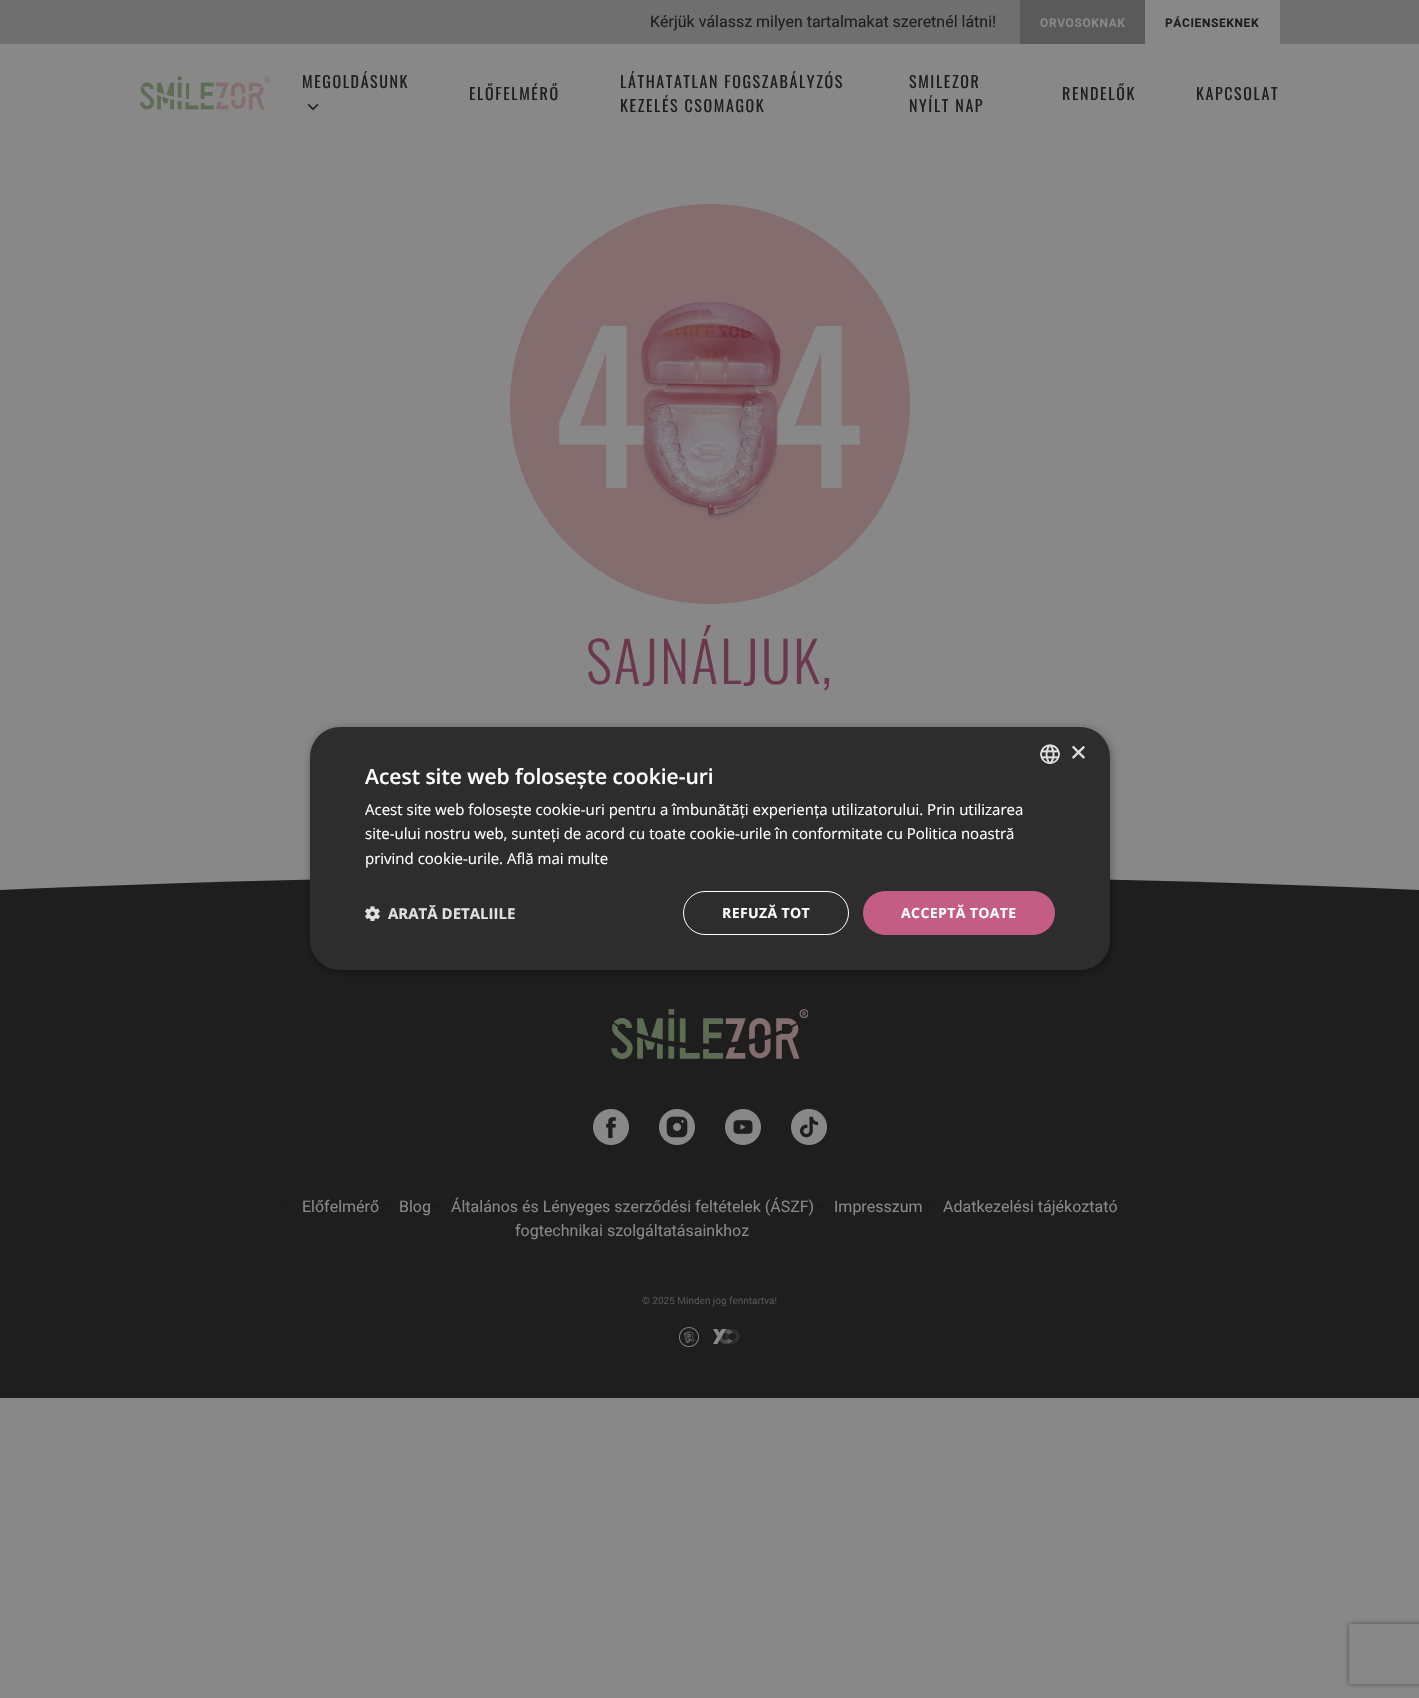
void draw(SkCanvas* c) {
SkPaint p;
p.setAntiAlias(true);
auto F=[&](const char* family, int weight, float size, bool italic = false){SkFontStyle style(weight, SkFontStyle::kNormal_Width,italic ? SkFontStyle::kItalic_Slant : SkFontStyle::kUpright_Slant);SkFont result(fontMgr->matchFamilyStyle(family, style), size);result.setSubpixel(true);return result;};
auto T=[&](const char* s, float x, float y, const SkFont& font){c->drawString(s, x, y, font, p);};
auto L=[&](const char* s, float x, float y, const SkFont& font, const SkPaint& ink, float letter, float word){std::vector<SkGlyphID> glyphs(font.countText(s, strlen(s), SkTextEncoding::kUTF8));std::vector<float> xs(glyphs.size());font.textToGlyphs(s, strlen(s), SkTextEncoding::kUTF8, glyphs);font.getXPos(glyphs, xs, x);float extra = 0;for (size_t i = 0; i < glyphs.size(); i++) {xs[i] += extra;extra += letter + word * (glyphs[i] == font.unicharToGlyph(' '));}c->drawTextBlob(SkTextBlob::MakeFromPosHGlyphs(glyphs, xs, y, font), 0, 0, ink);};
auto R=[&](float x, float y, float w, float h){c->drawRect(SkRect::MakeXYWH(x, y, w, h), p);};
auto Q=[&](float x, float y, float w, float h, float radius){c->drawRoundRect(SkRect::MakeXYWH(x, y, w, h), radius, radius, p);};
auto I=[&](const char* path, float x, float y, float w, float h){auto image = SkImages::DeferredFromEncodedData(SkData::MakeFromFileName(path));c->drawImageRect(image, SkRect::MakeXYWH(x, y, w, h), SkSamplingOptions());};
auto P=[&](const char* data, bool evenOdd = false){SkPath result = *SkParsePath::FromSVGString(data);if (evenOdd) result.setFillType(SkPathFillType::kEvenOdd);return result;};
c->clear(0xff888888);
p.setColor(0xff6f6f6f);
R(0,0,1419,44);
auto f1 = F("Roboto",400,16);
p.setColor(0xff1e1e1e);
T("Kérjük válassz milyen tartalmakat szeretnél látni!",650,27,f1);
p.setColor(0xff5a5a5a);
R(1020,0,125,44);
auto f2 = F("Roboto",700,12);
p.setColor(0xff888888);
L("ORVOSOKNAK",1040,27,f2,p,.6,0);
R(1145,0,135,44);
p.setColor(0xff1e1e1e);
L("PÁCIENSEKNEK",1165,27,f2,p,.6,0);
I("1.png",140,76,130,34);
auto f3 = F("Oswald",400,16);
L("MEGOLDÁSUNK",302,88,f3,p,1.6,0);
I("2.png",307,103,12,8);
L("ELŐFELMÉRŐ",469,100,f3,p,1.6,0);
L("LÁTHATATLAN FOGSZABÁLYZÓS",620,88,f3,p,1.6,0);
L("KEZELÉS CSOMAGOK",620,112,f3,p,1.6,0);
L("SMILEZOR",909,88,f3,p,1.6,0);
L("NYÍLT NAP",909,112,f3,p,1.6,0);
L("RENDELŐK",1062,100,f3,p,1.6,0);
L("KAPCSOLAT",1196,100,f3,p,1.6,0);
I("3.png",510,204,400,400);
auto f4 = F("Oswald",300,56);
p.setColor(0xff6a374b);
L("SAJNÁLJUK,",586,684,f4,p,2,0);
p.setColor(0xff1e1e1e);
R(0,1383,1419,15);
c->drawOval(SkRect::MakeXYWH(-1419,875,4257,523),p);
p.setColor(0x59000000);
p.setMaskFilter(SkMaskFilter::MakeBlur(kNormal_SkBlurStyle, 4));
c->drawRoundRect(SkRect::MakeXYWH(311,729,800,243),30,30,p);
p.setMaskFilter(nullptr);
p.setColor(0xff2d2d2d);
Q(310,727,800,243,30);
I("4.png",1040,744,20,20);
auto f5 = F("Liberation Sans",400,29);
p.setColor(0xffe0e0e0);
T("×",1070,762,f5);
auto f6 = F("Open Sans",600,21);
p.setColor(0xffffffff);
T("Acest site web folosește cookie-uri",365,784,f6);
auto f7 = F("Open Sans",400,15);
T("Acest site web folosește cookie-uri pentru a îmbunătăți experiența utilizatorului. Prin utilizarea",365,815,f7);
T("site-ului nostru web, sunteți de acord cu toate cookie-urile în conformitate cu Politica noastră",365,839,f7);
T("privind cookie-urile. Află mai multe",365,864,f7);
I("5.png",365,906,15,15);
auto f8 = F("Open Sans",700,15);
p.setColor(0xffe0e0e0);
T("ARATĂ DETALIILE",388,919,f8);
p.setStroke(true);
p.setStrokeWidth(1);
p.setColor(0xffffffff);
c->drawRoundRect(SkRect::MakeXYWH(683.5,891.5,165,43),21.5,21.5,p);
auto f9 = F("Open Sans",700,14);
p.setStroke(false);
L("REFUZĂ TOT",722,918,f9,p,.4,0);
p.setColor(0xffc35d84);
Q(863,891,192,44,22);
p.setColor(0xffffffff);
L("ACCEPTĂ TOATE",901,918,f9,p,.4,0);
I("6.png",611,1009,197,50);
I("7.png",593,1109,36,36);
I("8.png",659,1109,36,36);
I("9.png",725,1109,36,36);
I("10.png",791,1109,36,36);
p.setColor(0xff191b1d);
c->drawCircle(287.5,1206.5,2.5,p);
p.setColor(0xff888888);
T("Előfelmérő",302,1212,f1);
p.setColor(0xff191b1d);
c->drawCircle(384.5,1206.5,2.5,p);
p.setColor(0xff888888);
T("Blog",399,1212,f1);
p.setColor(0xff191b1d);
c->drawCircle(436.5,1206.5,2.5,p);
p.setColor(0xff888888);
T("Általános és Lényeges szerződési feltételek (ÁSZF)",451,1212,f1);
T("fogtechnikai szolgáltatásainkhoz",515,1236,f1);
p.setColor(0xff191b1d);
c->drawCircle(819.5,1206.5,2.5,p);
p.setColor(0xff888888);
T("Impresszum",834,1212,f1);
p.setColor(0xff191b1d);
c->drawCircle(928.5,1206.5,2.5,p);
p.setColor(0xff888888);
T("Adatkezelési tájékoztató",943,1212,f1);
auto f10 = F("Roboto",400,10);
p.setColor(0xff535353);
T("© 2025 Minden jog fenntartva!",642,1304,f10);
I("11.png",679,1327,20,20);
I("12.png",713,1329,27,15);
c->save();
c->clipPath(P("M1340 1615h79v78h-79zm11 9h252c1 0 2 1 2 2v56c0 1-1 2-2 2h-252c-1 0-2-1-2-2v-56c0-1 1-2 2-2z",true),true);
p.setColor(0xff494949);
p.setMaskFilter(SkMaskFilter::MakeBlur(kNormal_SkBlurStyle, 2.5));
c->drawRoundRect(SkRect::MakeXYWH(1349,1624,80,60),2,2,p);
p.setMaskFilter(nullptr);
c->restore();
}
